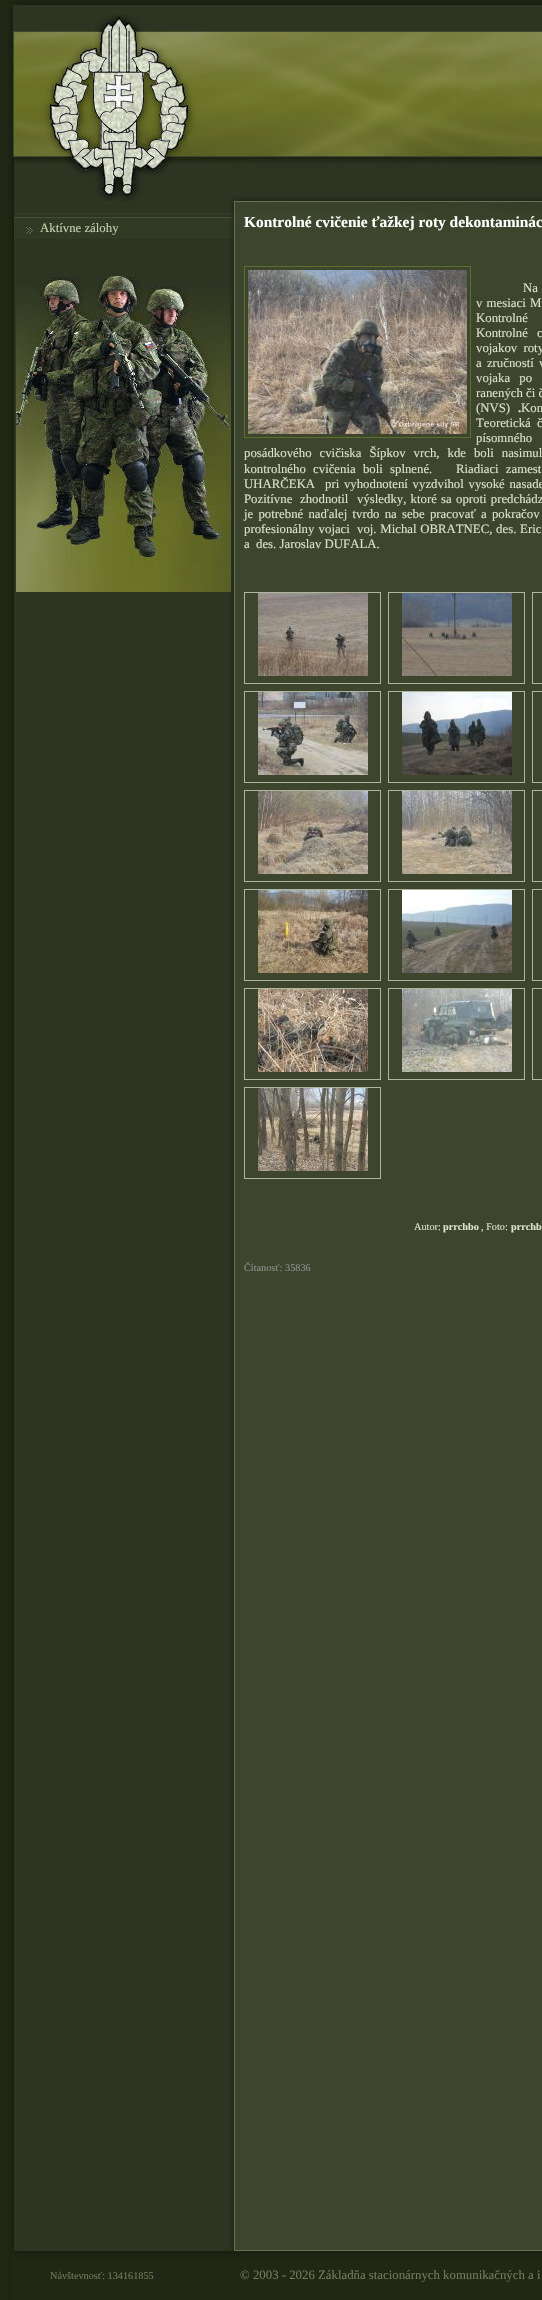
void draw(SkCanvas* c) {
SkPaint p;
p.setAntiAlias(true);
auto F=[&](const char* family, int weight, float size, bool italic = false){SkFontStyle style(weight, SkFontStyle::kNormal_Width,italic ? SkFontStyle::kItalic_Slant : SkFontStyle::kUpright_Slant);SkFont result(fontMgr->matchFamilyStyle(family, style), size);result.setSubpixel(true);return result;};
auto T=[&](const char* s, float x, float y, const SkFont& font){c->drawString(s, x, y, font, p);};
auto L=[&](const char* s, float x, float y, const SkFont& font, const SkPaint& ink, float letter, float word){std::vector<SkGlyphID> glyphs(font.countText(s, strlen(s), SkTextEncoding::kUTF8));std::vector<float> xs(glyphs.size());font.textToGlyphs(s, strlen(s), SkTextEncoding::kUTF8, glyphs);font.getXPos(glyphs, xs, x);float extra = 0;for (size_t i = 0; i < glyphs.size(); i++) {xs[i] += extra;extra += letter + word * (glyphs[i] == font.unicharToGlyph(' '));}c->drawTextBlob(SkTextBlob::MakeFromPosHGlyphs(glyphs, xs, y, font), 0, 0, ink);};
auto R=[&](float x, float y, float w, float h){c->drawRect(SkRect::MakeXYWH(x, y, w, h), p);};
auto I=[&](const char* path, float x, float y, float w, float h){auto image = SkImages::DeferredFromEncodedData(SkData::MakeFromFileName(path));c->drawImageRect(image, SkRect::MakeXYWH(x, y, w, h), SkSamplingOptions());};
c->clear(0xffffffff);
I("1.png",0,213,542,2087);
I("2.png",0,0,542,213);
I("3.png",40,15,158,186);
I("4.png",14,213,220,26);
auto f1 = F("Liberation Serif",400,12.8);
p.setColor(0xffc3d1ad);
T("Aktívne zálohy",40,232,f1);
I("5.png",16,275,215,317);
p.setColor(0xff394129);
R(426,213,116,12);
auto f2 = F("Liberation Serif",700,15.4);
p.setColor(0xffffffff);
T("Kontrolné cvičenie ťažkej roty dekontaminác",244,227,f2);
p.setStroke(true);
p.setStrokeWidth(1);
p.setColor(0xff5a6f30);
c->drawRect(SkRect::MakeXYWH(244.5,266.5,226,171),p);
I("6.png",248,270,219,164);
p.setStroke(false);
p.setColor(0xffd7e1c7);
T("Na",523,292,f1);
L("v mesiaci M",476,307,f1,p,0,1);
L("Kontrolné",476,322,f1,p,0,10);
L("Kontrolné c",476,337,f1,p,0,6);
L("vojakov roty",476,352,f1,p,0,3);
L("a zručností v",476,367,f1,p,0,2);
L("vojaka po",476,382,f1,p,0,6);
T("ranených či č",476,397,f1);
T("(NVS)",476,412,f1);
auto f3 = F("Liberation Serif",700,12.8);
T(".",518,412,f3);
L("Kon",521,412,f1,p,0,4);
L("Teoretická č",476,427,f1,p,0,3);
L("písomného",476,442,f1,p,0,6);
L("posádkového cvičiska Šípkov vrch, kde boli nasimul",244,457,f1,p,0,4.75);
L("kontrolného cvičenia boli splnené.",244,473,f1,p,0,4);
L("Riadiaci zamest",456,473,f1,p,0,4);
T("UHARČEKA",244,488,f1);
L("pri vyhodnotení vyzdvihol vysoké nasade",325,488,f1,p,0,1.5);
T("Pozitívne",244,503,f1);
T("zhodnotil",300,503,f1);
L("výsledky, ktoré sa oproti predchádz",357,503,f1,p,0,1);
L("je potrebné naďalej tvrdo na sebe pracovať a pokračov",244,518,f1,p,0,2);
L("profesionálny vojaci",244,533,f1,p,0,1);
L("voj. Michal OBRATNEC, des. Eric",357,533,f1,p,0,.5);
T("a",244,548,f1);
T("des. Jaroslav DUFALA.",256,548,f1);
p.setStroke(true);
p.setColor(0xffb0b59f);
c->drawRect(SkRect::MakeXYWH(244.5,592.5,136,91),p);
I("7.png",258,593,110,83);
c->drawRect(SkRect::MakeXYWH(388.5,592.5,136,91),p);
I("8.png",402,593,110,83);
c->drawRect(SkRect::MakeXYWH(532.5,592.5,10,91),p);
c->drawRect(SkRect::MakeXYWH(244.5,691.5,136,91),p);
I("9.png",258,692,110,83);
c->drawRect(SkRect::MakeXYWH(388.5,691.5,136,91),p);
I("10.png",402,692,110,83);
c->drawRect(SkRect::MakeXYWH(532.5,691.5,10,91),p);
c->drawRect(SkRect::MakeXYWH(244.5,790.5,136,91),p);
I("11.png",258,791,110,83);
c->drawRect(SkRect::MakeXYWH(388.5,790.5,136,91),p);
I("12.png",402,791,110,83);
c->drawRect(SkRect::MakeXYWH(532.5,790.5,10,91),p);
c->drawRect(SkRect::MakeXYWH(244.5,889.5,136,91),p);
I("13.png",258,890,110,83);
c->drawRect(SkRect::MakeXYWH(388.5,889.5,136,91),p);
I("14.png",402,890,110,83);
c->drawRect(SkRect::MakeXYWH(532.5,889.5,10,91),p);
c->drawRect(SkRect::MakeXYWH(244.5,988.5,136,91),p);
I("15.png",258,989,110,83);
c->drawRect(SkRect::MakeXYWH(388.5,988.5,136,91),p);
I("16.png",402,989,110,83);
c->drawRect(SkRect::MakeXYWH(532.5,988.5,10,91),p);
c->drawRect(SkRect::MakeXYWH(244.5,1087.5,136,91),p);
I("17.png",258,1088,110,83);
auto f4 = F("Liberation Serif",400,10.25);
p.setStroke(false);
p.setColor(0xffd7e1c7);
T("Autor:",414,1230,f4);
auto f5 = F("Liberation Serif",700,10.25);
T("prrchbo",443,1230,f5);
T(", Foto:",481,1230,f4);
T("prrchb",511,1230,f5);
p.setColor(0xff919191);
T("Čítanosť: 35836",244,1271,f4);
I("18.png",11,2248,531,52);
p.setColor(0xff767a58);
T("Návštevnosť: 134161855",50,2279,f4);
T("© 2003 - 2026 Základňa stacionárnych komunikačných a i",240,2279,f1);
}
